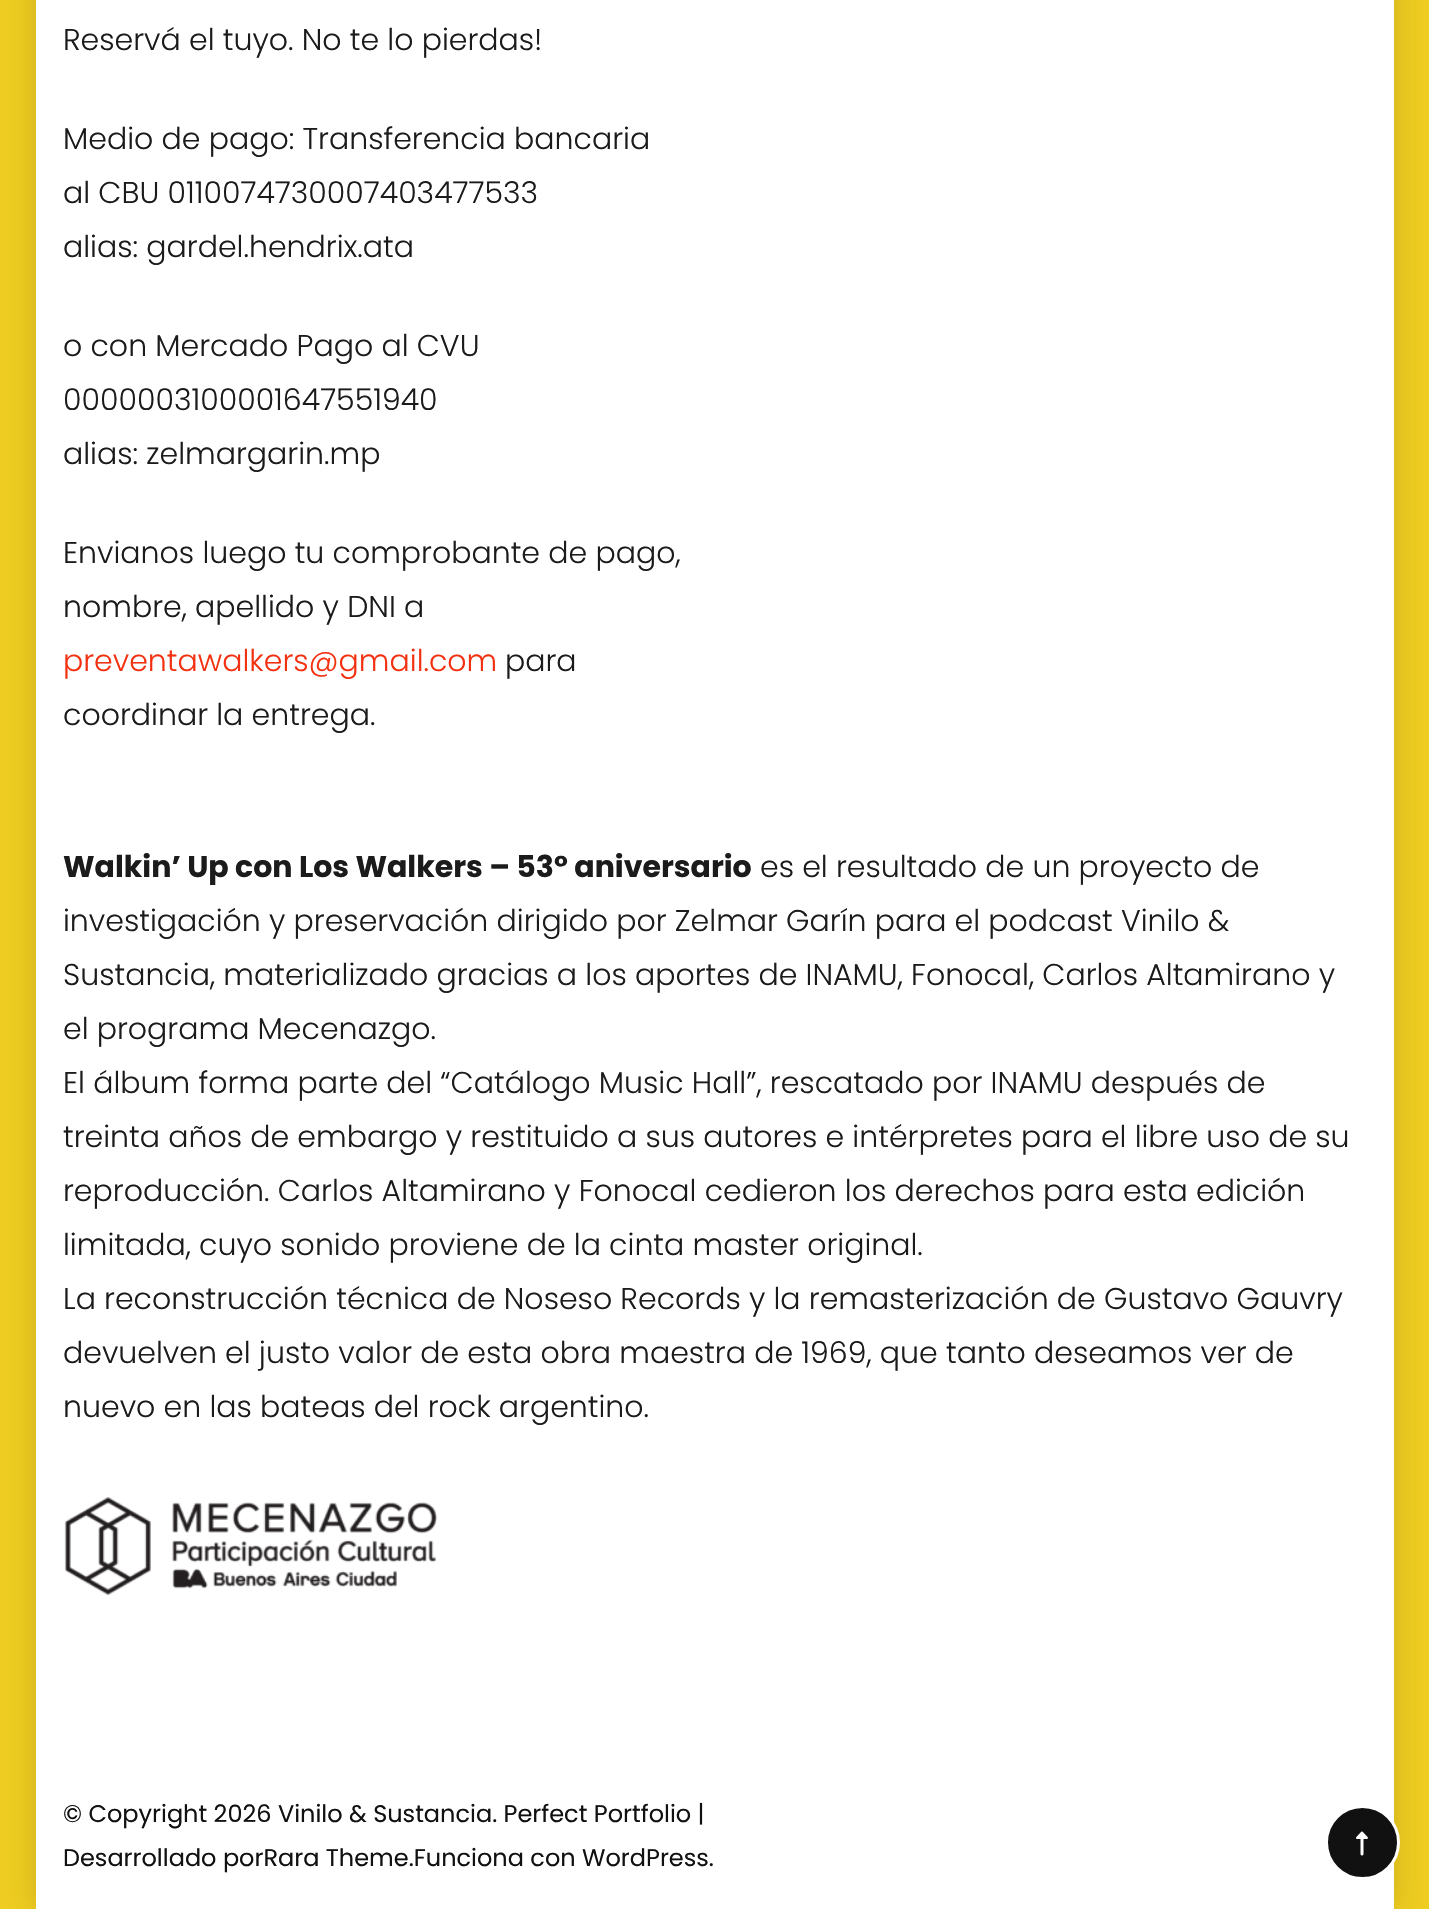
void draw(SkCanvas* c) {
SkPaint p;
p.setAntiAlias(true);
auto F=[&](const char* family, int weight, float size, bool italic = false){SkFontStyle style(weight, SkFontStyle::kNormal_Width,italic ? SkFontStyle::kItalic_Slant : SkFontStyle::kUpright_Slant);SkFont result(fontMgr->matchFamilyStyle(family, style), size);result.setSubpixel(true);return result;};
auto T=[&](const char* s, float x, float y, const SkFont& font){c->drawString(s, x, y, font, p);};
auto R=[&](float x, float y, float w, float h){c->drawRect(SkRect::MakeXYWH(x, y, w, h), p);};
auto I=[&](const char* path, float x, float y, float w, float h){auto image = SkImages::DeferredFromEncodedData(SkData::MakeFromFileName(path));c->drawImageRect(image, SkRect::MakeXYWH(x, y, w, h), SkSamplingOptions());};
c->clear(0xffefcd21);
p.setColor(0x26000000);
p.setMaskFilter(SkMaskFilter::MakeBlur(kNormal_SkBlurStyle, 15));
c->drawRect(SkRect::MakeXYWH(36,-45,1358,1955),p);
p.setMaskFilter(nullptr);
p.setColor(0xffffffff);
R(36,0,1358,1909);
auto f1 = F("Poppins",300,30);
p.setColor(0xff1c1b1b);
T("Reservá el tuyo. No te lo pierdas!",63,50,f1);
T("Medio de pago: Transferencia bancaria",63,149,f1);
T("al CBU 0110074730007403477533",63,203,f1);
T("alias: gardel.hendrix.ata",63,257,f1);
T("o con Mercado Pago al CVU",63,356,f1);
T("0000003100001647551940",63,410,f1);
T("alias: zelmargarin.mp",63,464,f1);
T("Envianos luego tu comprobante de pago,",63,563,f1);
T("nombre, apellido y DNI a",63,617,f1);
p.setColor(0xfff33110);
T("preventawalkers@gmail.com",63,671,f1);
p.setColor(0xff1c1b1b);
T("para",505,671,f1);
T("coordinar la entrega.",63,725,f1);
auto f2 = F("Poppins",700,30);
T("Walkin’ Up con Los Walkers – 53° aniversario",63,877,f2);
T("es el resultado de un proyecto de",760,877,f1);
T("investigación y preservación dirigido por Zelmar Garín para el podcast Vinilo &",63,931,f1);
T("Sustancia, materializado gracias a los aportes de INAMU, Fonocal, Carlos Altamirano y",63,985,f1);
T("el programa Mecenazgo.",63,1039,f1);
T("El álbum forma parte del “Catálogo Music Hall”, rescatado por INAMU después de",63,1093,f1);
T("treinta años de embargo y restituido a sus autores e intérpretes para el libre uso de su",63,1147,f1);
T("reproducción. Carlos Altamirano y Fonocal cedieron los derechos para esta edición",63,1201,f1);
T("limitada, cuyo sonido proviene de la cinta master original.",63,1255,f1);
T("La reconstrucción técnica de Noseso Records y la remasterización de Gustavo Gauvry",63,1309,f1);
T("devuelven el justo valor de esta obra maestra de 1969, que tanto deseamos ver de",63,1363,f1);
T("nuevo en las bateas del rock argentino.",63,1417,f1);
I("1.png",64,1497,374,98);
auto f3 = F("Poppins",400,24);
p.setColor(0xff111111);
T("© Copyright 2026 Vinilo & Sustancia. Perfect Portfolio |",63,1822,f3);
T("Desarrollado porRara Theme.Funciona con WordPress.",63,1866,f3);
c->drawCircle(1362.5,1842.5,36,p);
p.setStroke(true);
p.setStrokeWidth(3);
p.setColor(0xffffffff);
c->drawCircle(1362.5,1842.5,36,p);
I("2.png",1356,1831,12,25);
}
